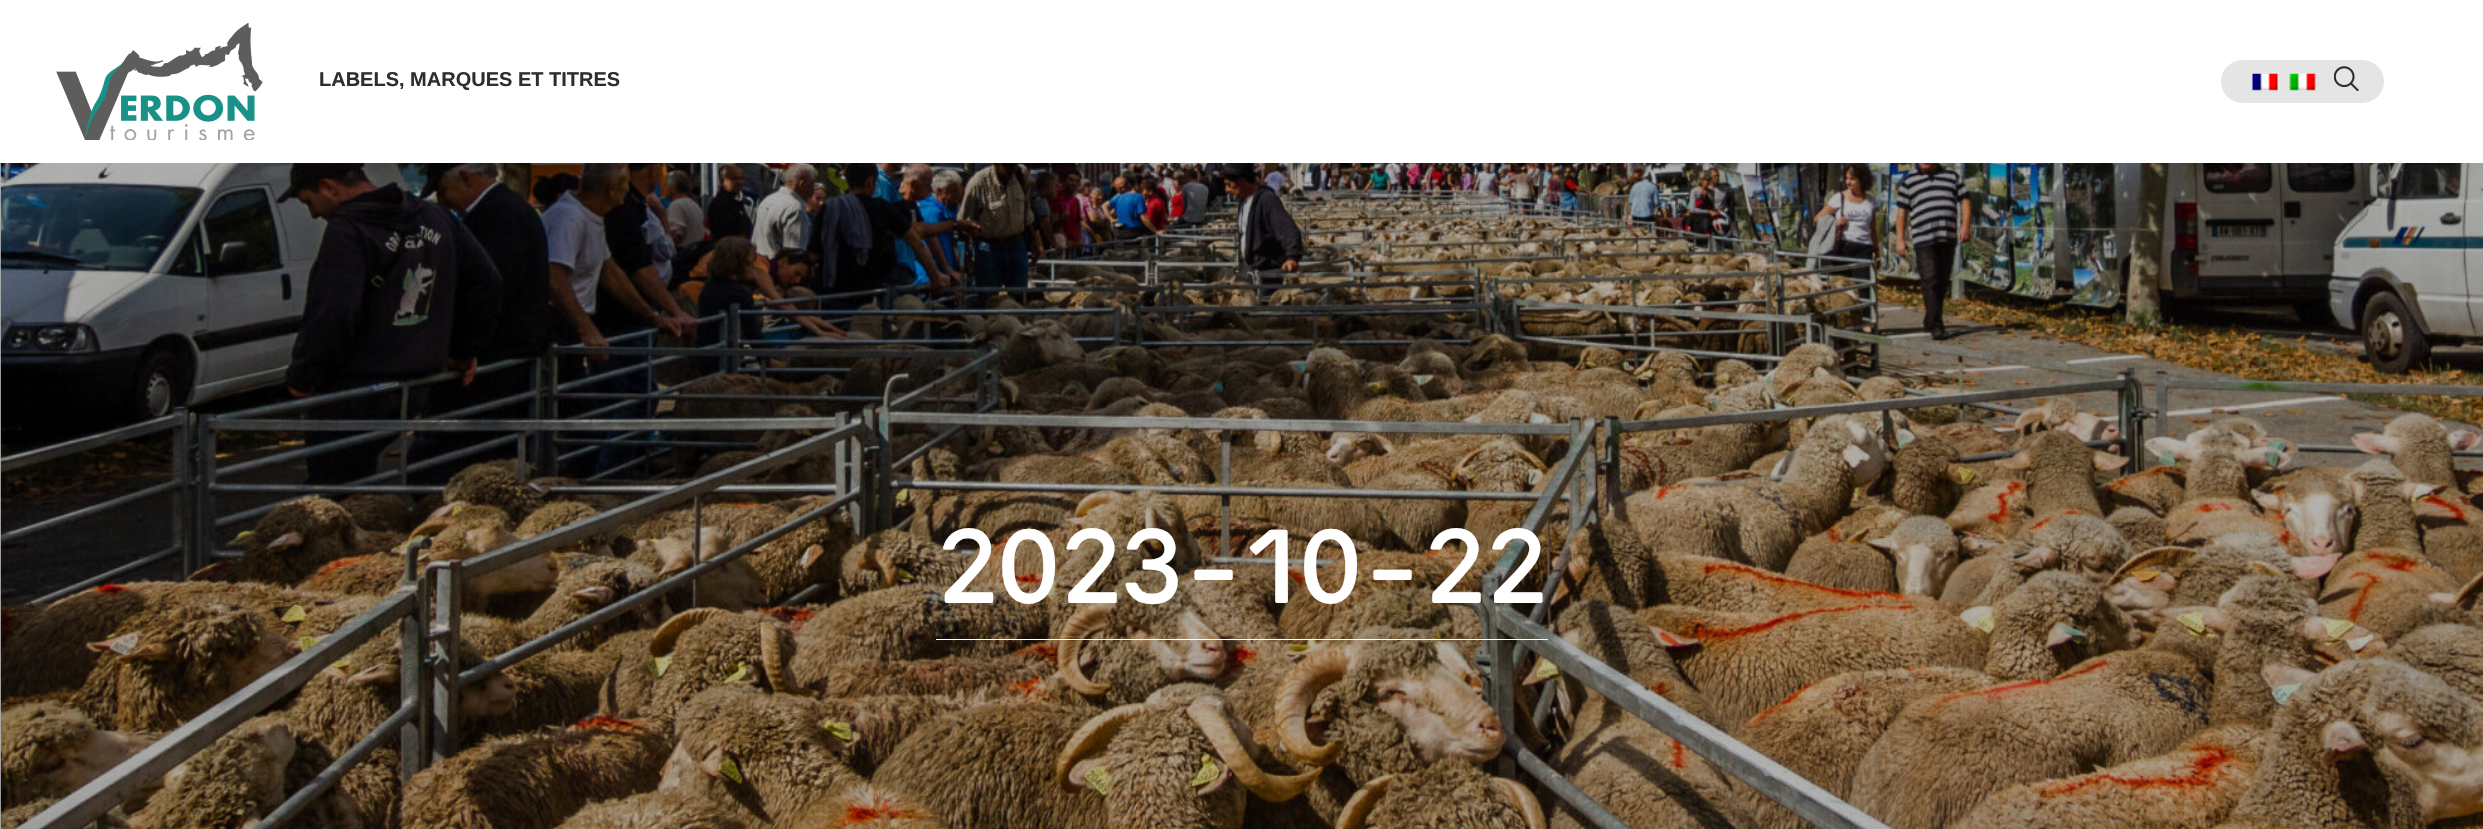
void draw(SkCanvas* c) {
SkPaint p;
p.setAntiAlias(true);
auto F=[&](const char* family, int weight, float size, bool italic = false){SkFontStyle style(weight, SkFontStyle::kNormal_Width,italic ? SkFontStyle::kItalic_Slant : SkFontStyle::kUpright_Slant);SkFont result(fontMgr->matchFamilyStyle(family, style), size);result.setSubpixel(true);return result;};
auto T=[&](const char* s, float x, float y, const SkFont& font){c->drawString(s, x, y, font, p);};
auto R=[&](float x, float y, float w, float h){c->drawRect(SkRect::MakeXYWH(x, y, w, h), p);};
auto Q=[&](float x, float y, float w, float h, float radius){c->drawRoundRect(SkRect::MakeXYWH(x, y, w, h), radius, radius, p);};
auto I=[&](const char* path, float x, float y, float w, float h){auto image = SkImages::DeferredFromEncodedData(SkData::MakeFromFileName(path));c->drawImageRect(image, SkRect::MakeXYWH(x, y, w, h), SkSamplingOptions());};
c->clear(0xffb3b3b3);
p.setColor(0xffffffff);
R(0,0,2483,163);
I("1.png",56,23,207,117);
auto f1 = F("Liberation Sans",700,20);
p.setColor(0xff2e2e2e);
T("LABELS, MARQUES ET TITRES",319,86,f1);
p.setColor(0xffe5e5e5);
Q(2221,60,163,43,21.5);
I("2.png",2252,73,26,18);
I("3.png",2289,73,27,18);
I("4.png",2334,66,25,25);
I("5.png",0,163,2483,666);
auto f2 = F("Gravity",700,100);
p.setColor(0xffffffff);
T("2023-10-22",936,603,f2);
R(936,639,612,1);
}
